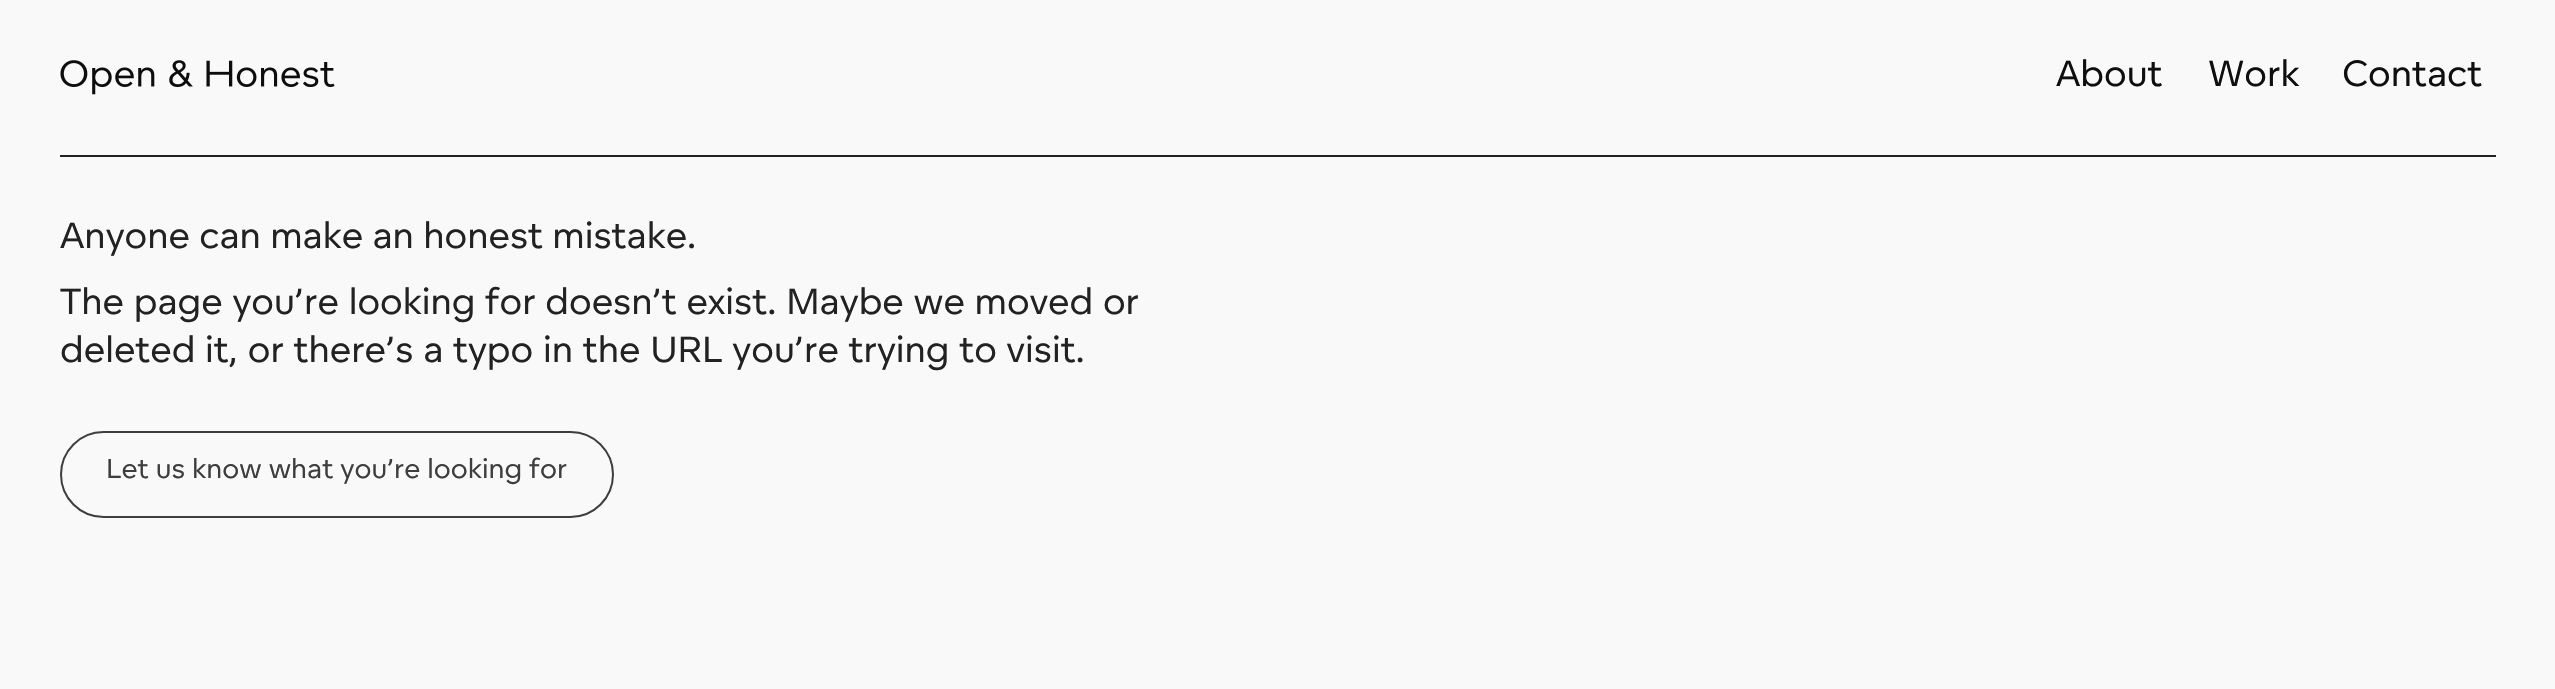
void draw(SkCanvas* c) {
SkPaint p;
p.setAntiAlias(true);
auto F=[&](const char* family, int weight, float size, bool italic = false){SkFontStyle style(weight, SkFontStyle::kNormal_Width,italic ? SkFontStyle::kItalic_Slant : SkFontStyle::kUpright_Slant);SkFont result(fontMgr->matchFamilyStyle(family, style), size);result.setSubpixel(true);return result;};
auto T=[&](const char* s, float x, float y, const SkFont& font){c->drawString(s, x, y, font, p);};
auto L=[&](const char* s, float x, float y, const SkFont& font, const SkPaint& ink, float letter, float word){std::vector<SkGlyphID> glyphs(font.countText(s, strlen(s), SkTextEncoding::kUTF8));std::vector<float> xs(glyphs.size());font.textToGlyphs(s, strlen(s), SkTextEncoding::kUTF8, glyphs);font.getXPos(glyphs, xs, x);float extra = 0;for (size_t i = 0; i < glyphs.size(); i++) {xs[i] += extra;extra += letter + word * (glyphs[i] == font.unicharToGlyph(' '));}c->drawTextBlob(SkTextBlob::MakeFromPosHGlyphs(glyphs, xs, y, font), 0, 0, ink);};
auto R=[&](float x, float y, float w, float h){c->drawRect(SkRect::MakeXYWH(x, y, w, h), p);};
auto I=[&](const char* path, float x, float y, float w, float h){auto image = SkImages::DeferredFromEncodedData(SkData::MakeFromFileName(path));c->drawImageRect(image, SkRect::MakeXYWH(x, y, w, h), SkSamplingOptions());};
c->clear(0xfff9f9f9);
p.setColor(0xff222222);
R(60,155,2436,2);
I("1.png",60,60,275,35);
auto f1 = F("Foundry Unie",400,36);
p.setColor(0xff0f0f0f);
T("About",2056,86,f1);
T("Work",2208,86,f1);
T("Contact",2342,86,f1);
p.setColor(0xff222222);
L("Anyone can make an honest mistake.",60,248,f1,p,0,-.75);
L("The page you’re looking for doesn’t exist. Maybe we moved or",60,314,f1,p,0,-.25);
L("deleted it, or there’s a typo in the URL you’re trying to visit.",60,362,f1,p,0,-.25);
p.setStroke(true);
p.setStrokeWidth(2);
p.setColor(0xff3e3e3e);
c->drawRoundRect(SkRect::MakeXYWH(61,432,552,85),42.5,42.5,p);
auto f2 = F("Foundry Unie",400,27);
p.setStroke(false);
L("Let us know what you’re looking for",106,478,f2,p,0,-.5);
}
